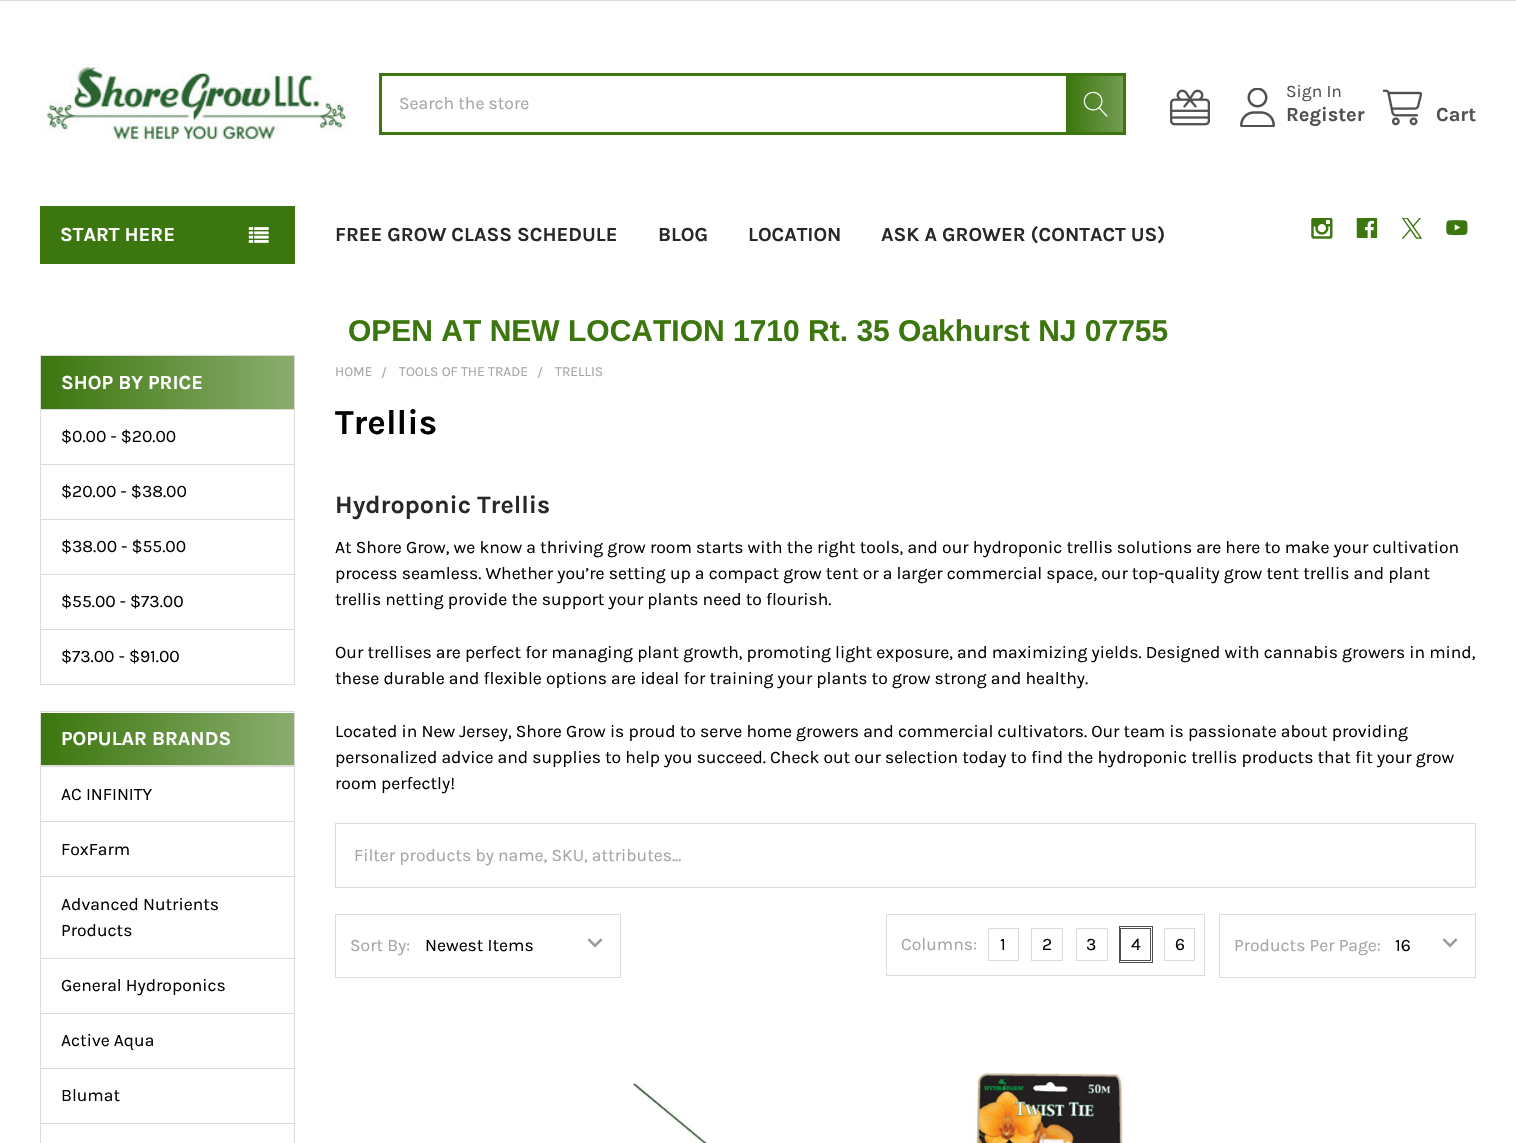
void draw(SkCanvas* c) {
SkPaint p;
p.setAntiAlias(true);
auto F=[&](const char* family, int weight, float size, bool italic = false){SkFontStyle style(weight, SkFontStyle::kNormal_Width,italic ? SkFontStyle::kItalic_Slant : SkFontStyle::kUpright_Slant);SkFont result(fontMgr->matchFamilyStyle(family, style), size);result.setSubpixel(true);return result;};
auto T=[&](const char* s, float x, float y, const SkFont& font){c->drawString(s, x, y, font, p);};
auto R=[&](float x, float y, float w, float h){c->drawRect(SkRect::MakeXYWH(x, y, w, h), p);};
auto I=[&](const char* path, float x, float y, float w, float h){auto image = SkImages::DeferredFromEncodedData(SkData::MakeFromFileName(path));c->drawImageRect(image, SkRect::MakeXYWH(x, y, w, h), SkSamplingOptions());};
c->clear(0xffffffff);
p.setColor(0xffdcdcdc);
R(0,0,1516,1);
I("1.png",40,63,310,80);
p.setStroke(true);
p.setStrokeWidth(3);
p.setColor(0xff3c760e);
c->drawRect(SkRect::MakeXYWH(380.5,74.5,744,59),p);
auto f1 = F("Karla",400,17.5);
p.setStroke(false);
p.setColor(0xffa5a5a5);
T("Search the store",399,109,f1);
{
const SkColor colors[] = {0xff3c760e,0xb33c760e};
const float stops[] = {0,1};
const SkPoint ends[] = {{1066,104}, {1126,104}};
p.setShader(SkGradientShader::MakeLinear(ends, colors, stops, 2, SkTileMode::kClamp));
p.setAlpha(255);
}
R(1066,76,57,56);
I("2.png",1083,91,25,26);
I("3.png",1170,89,40,37);
I("4.png",1240,88,35,39);
p.setShader(nullptr);
p.setColor(0xff505050);
T("Sign In",1286,97,f1);
auto f2 = F("Karla",700,20);
T("Register",1286,121,f2);
I("5.png",1383,89,39,37);
T("Cart",1436,121,f2);
p.setColor(0xff3c760e);
R(40,206,255,58);
p.setColor(0xffffffff);
T("START HERE",60,241,f2);
I("6.png",248,227,21,16);
p.setColor(0xff282828);
T("FREE GROW CLASS SCHEDULE",335,241,f2);
T("BLOG",658,241,f2);
T("LOCATION",748,241,f2);
T("ASK A GROWER (CONTACT US)",881,241,f2);
I("7.png",1311,218,22,21);
I("8.png",1356,218,22,20);
I("9.png",1401,218,22,21);
I("10.png",1446,220,22,16);
auto f3 = F("Liberation Sans",700,30);
p.setColor(0xff3c760e);
T("OPEN AT NEW LOCATION 1710 Rt. 35 Oakhurst NJ 07755",348,341,f3);
p.setStroke(true);
p.setStrokeWidth(1);
p.setColor(0xffdcdcdc);
c->drawRect(SkRect::MakeXYWH(40.5,355.5,254,329),p);
p.setStroke(false);
{
const SkColor colors[] = {0xff3c760e,0xff8aad6e};
const float stops[] = {0,1};
const SkPoint ends[] = {{41,383}, {294,383}};
p.setShader(SkGradientShader::MakeLinear(ends, colors, stops, 2, SkTileMode::kClamp));
p.setAlpha(255);
}
R(41,356,253,53);
p.setShader(nullptr);
p.setColor(0xffdcdcdc);
R(41,409,253,1);
p.setColor(0xffffffff);
T("SHOP BY PRICE",61,389,f2);
p.setColor(0xff030303);
T("$0.00 - $20.00",61,442,f1);
p.setColor(0xffdcdcdc);
R(41,464,253,1);
p.setColor(0xff030303);
T("$20.00 - $38.00",61,497,f1);
p.setColor(0xffdcdcdc);
R(41,519,253,1);
p.setColor(0xff030303);
T("$38.00 - $55.00",61,552,f1);
p.setColor(0xffdcdcdc);
R(41,574,253,1);
p.setColor(0xff030303);
T("$55.00 - $73.00",61,607,f1);
p.setColor(0xffdcdcdc);
R(41,629,253,1);
p.setColor(0xff030303);
T("$73.00 - $91.00",61,662,f1);
p.setStroke(true);
p.setColor(0xffdcdcdc);
c->drawRect(SkRect::MakeXYWH(40.5,711.5,254,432),p);
p.setStroke(false);
{
const SkColor colors[] = {0xff3c760e,0xff8aad6e};
const float stops[] = {0,1};
const SkPoint ends[] = {{41,739}, {294,739}};
p.setShader(SkGradientShader::MakeLinear(ends, colors, stops, 2, SkTileMode::kClamp));
p.setAlpha(255);
}
R(41,713,253,52);
p.setShader(nullptr);
p.setColor(0xffffffff);
T("POPULAR BRANDS",61,745,f2);
p.setColor(0xffdcdcdc);
R(41,765,253,2);
p.setColor(0xff030303);
T("AC INFINITY",61,800,f1);
p.setColor(0xffdcdcdc);
R(41,821,253,1);
p.setColor(0xff030303);
T("FoxFarm",61,855,f1);
p.setColor(0xffdcdcdc);
R(41,876,253,1);
p.setColor(0xff030303);
T("Advanced Nutrients",61,910,f1);
T("Products",61,936,f1);
p.setColor(0xffdcdcdc);
R(41,958,253,1);
p.setColor(0xff030303);
T("General Hydroponics",61,991,f1);
p.setColor(0xffdcdcdc);
R(41,1013,253,1);
p.setColor(0xff030303);
T("Active Aqua",61,1046,f1);
p.setColor(0xffdcdcdc);
R(41,1068,253,1);
p.setColor(0xff030303);
T("Blumat",61,1101,f1);
p.setColor(0xffdcdcdc);
R(41,1123,253,1);
auto f4 = F("Karla",400,13.75);
p.setColor(0xffa5a5a5);
T("HOME",335,376,f4);
T("/",381,377,f4);
T("TOOLS OF THE TRADE",399,376,f4);
T("/",537,377,f4);
T("TRELLIS",555,376,f4);
auto f5 = F("Karla",700,35);
p.setColor(0xff030303);
T("Trellis",335,434,f5);
auto f6 = F("Karla",700,25);
p.setColor(0xff282828);
T("Hydroponic Trellis",335,513,f6);
p.setColor(0xff030303);
T("At Shore Grow, we know a thriving grow room starts with the right tools, and our hydroponic trellis solutions are here to make your cultivation",335,553,f1);
T("process seamless. Whether you’re setting up a compact grow tent or a larger commercial space, our top-quality grow tent trellis and plant",335,579,f1);
T("trellis netting provide the support your plants need to flourish.",335,605,f1);
T("Our trellises are perfect for managing plant growth, promoting light exposure, and maximizing yields. Designed with cannabis growers in mind,",335,658,f1);
T("these durable and flexible options are ideal for training your plants to grow strong and healthy.",335,684,f1);
T("Located in New Jersey, Shore Grow is proud to serve home growers and commercial cultivators. Our team is passionate about providing",335,737,f1);
T("personalized advice and supplies to help you succeed. Check out our selection today to find the hydroponic trellis products that fit your grow",335,763,f1);
T("room perfectly!",335,789,f1);
p.setStroke(true);
p.setColor(0xffdcdcdc);
c->drawRect(SkRect::MakeXYWH(335.5,823.5,1140,64),p);
p.setStroke(false);
p.setColor(0xffa5a5a5);
T("Filter products by name, SKU, attributes...",354,861,f1);
p.setStroke(true);
p.setColor(0xffdcdcdc);
c->drawRect(SkRect::MakeXYWH(335.5,914.5,285,63),p);
p.setStroke(false);
p.setColor(0xffa5a5a5);
T("Sort By:",350,951,f1);
I("11.png",587,938,16,10);
p.setColor(0xff030303);
T("Newest Items",425,951,f1);
p.setStroke(true);
p.setColor(0xffdcdcdc);
c->drawRect(SkRect::MakeXYWH(886.5,914.5,318,61),p);
p.setStroke(false);
p.setColor(0xffa5a5a5);
T("Columns:",901,950,f1);
p.setStroke(true);
p.setColor(0xffdcdcdc);
c->drawRect(SkRect::MakeXYWH(988.5,928.5,30,32),p);
p.setStroke(false);
p.setColor(0xff030303);
T("1",1000,950,f1);
p.setStroke(true);
p.setColor(0xffdcdcdc);
c->drawRect(SkRect::MakeXYWH(1031.5,928.5,31,32),p);
p.setStroke(false);
p.setColor(0xff030303);
T("2",1042,950,f1);
p.setStroke(true);
p.setColor(0xffdcdcdc);
c->drawRect(SkRect::MakeXYWH(1076.5,928.5,31,32),p);
p.setStroke(false);
p.setColor(0xff030303);
T("3",1086,950,f1);
p.setStroke(true);
p.setColor(0xff4f4f4f);
c->drawRect(SkRect::MakeXYWH(1119.5,926.5,33,36),p);
c->drawRect(SkRect::MakeXYWH(1120.5,928.5,30,32),p);
p.setStroke(false);
p.setColor(0xff030303);
T("4",1131,950,f1);
p.setStroke(true);
p.setColor(0xffdcdcdc);
c->drawRect(SkRect::MakeXYWH(1164.5,928.5,30,32),p);
p.setStroke(false);
p.setColor(0xff030303);
T("6",1175,950,f1);
p.setStroke(true);
p.setColor(0xffdcdcdc);
c->drawRect(SkRect::MakeXYWH(1219.5,914.5,256,63),p);
p.setStroke(false);
p.setColor(0xffa5a5a5);
T("Products Per Page:",1234,951,f1);
I("11.png",1442,938,16,10);
p.setColor(0xff030303);
T("16",1395,951,f1);
I("12.png",632,1083,78,60);
I("13.png",971,1072,153,71);
}
